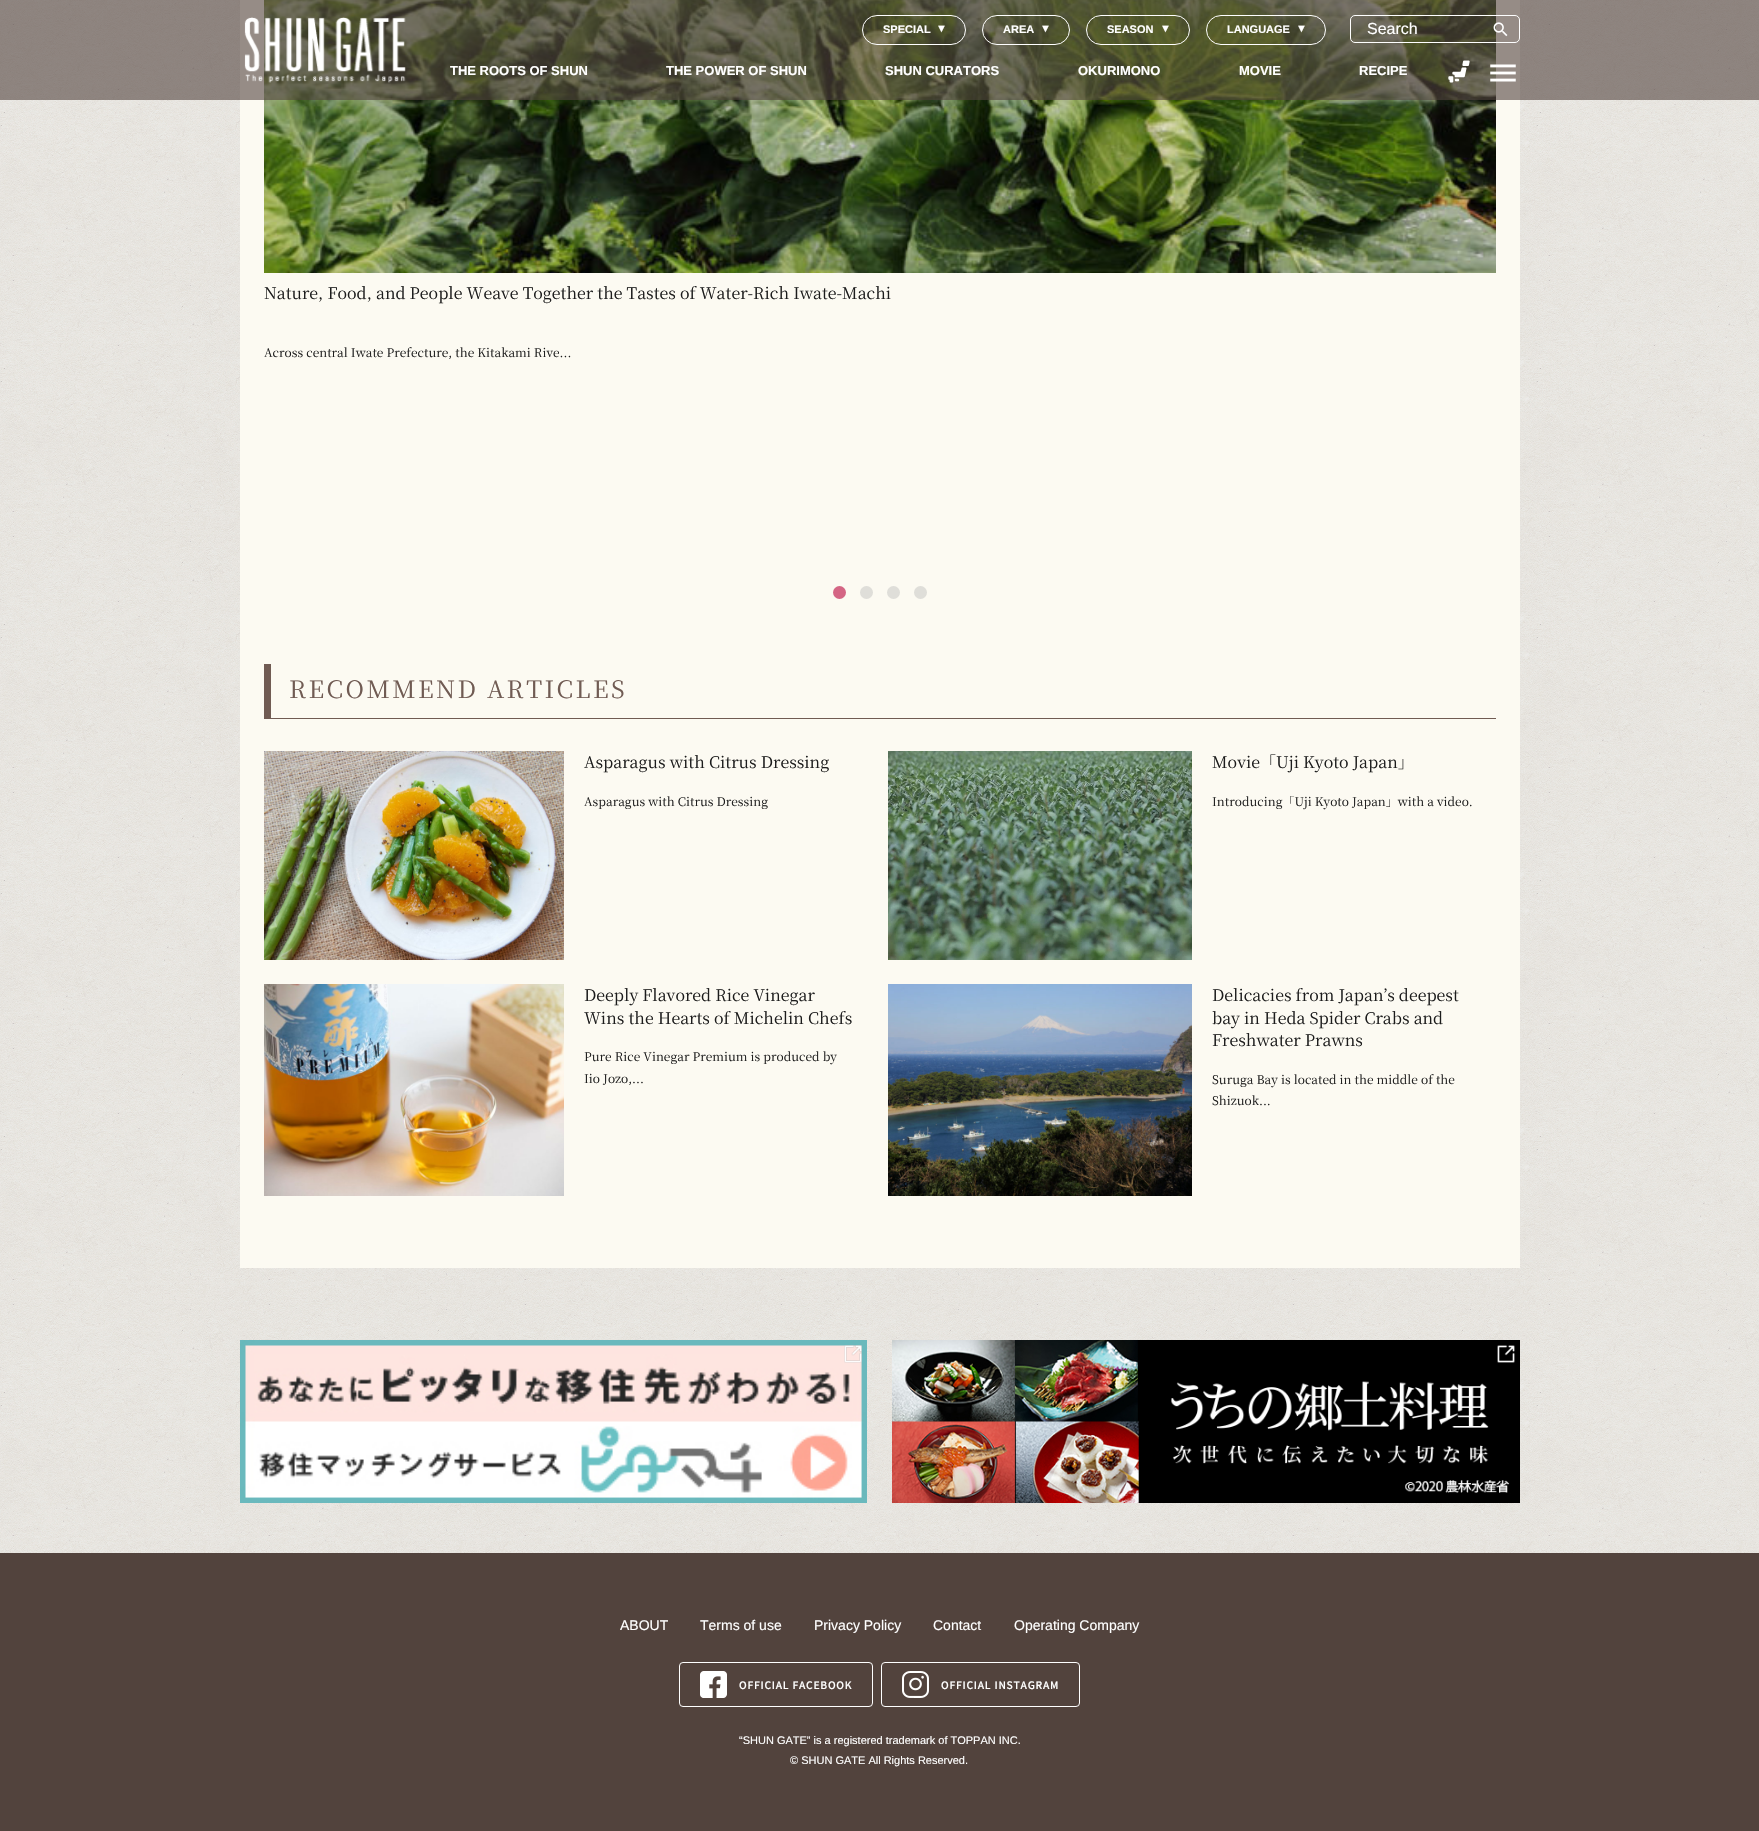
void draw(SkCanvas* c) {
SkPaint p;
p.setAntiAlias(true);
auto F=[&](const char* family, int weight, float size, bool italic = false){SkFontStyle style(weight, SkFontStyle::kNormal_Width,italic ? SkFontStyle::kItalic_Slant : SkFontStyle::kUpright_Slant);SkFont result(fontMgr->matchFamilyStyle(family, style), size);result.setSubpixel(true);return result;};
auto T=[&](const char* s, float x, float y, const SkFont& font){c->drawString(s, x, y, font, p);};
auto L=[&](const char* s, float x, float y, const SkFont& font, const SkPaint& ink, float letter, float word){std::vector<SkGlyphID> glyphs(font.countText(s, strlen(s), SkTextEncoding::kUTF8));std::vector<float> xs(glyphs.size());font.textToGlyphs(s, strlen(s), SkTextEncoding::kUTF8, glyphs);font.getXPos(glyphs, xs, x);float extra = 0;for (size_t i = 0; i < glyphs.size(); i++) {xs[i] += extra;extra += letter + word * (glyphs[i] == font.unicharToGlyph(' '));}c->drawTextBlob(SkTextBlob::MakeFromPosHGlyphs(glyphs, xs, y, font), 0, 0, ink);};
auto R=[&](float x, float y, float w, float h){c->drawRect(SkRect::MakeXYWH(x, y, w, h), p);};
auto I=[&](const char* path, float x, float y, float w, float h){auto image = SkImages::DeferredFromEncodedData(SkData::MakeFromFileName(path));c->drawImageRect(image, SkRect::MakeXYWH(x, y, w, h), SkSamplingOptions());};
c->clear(0xffffffff);
I("1.png",0,0,1759,1553);
p.setColor(0xfffcfaf2);
R(240,0,1280,1268);
I("6.png",264,0,1232,273);
p.setColor(0x9952433d);
R(0,0,1759,100);
I("2.png",244,17,162,66);
p.setStroke(true);
p.setStrokeWidth(1);
p.setColor(0xffffffff);
c->drawRoundRect(SkRect::MakeXYWH(862.5,15.5,103,29),14.5,14.5,p);
auto f1 = F("Liberation Sans",700,11);
p.setStroke(false);
T("SPECIAL",883,33,f1);
T("▼",936,32,f1);
p.setStroke(true);
c->drawRoundRect(SkRect::MakeXYWH(982.5,15.5,87,29),14.5,14.5,p);
p.setStroke(false);
T("AREA",1003,33,f1);
T("▼",1040,32,f1);
p.setStroke(true);
c->drawRoundRect(SkRect::MakeXYWH(1086.5,15.5,103,29),14.5,14.5,p);
p.setStroke(false);
T("SEASON",1107,33,f1);
T("▼",1160,32,f1);
p.setStroke(true);
c->drawRoundRect(SkRect::MakeXYWH(1206.5,15.5,119,29),14.5,14.5,p);
p.setStroke(false);
T("LANGUAGE",1227,33,f1);
T("▼",1296,32,f1);
p.setStroke(true);
c->drawRoundRect(SkRect::MakeXYWH(1350.5,15.5,169,27),4.5,4.5,p);
auto f2 = F("Liberation Sans",400,16);
p.setStroke(false);
T("Search",1367,34,f2);
I("3.png",1493,22,15,15);
auto f3 = F("Liberation Sans",700,13);
T("THE ROOTS OF SHUN",450,75,f3);
T("THE POWER OF SHUN",666,75,f3);
T("SHUN CURATORS",885,75,f3);
T("OKURIMONO",1078,75,f3);
T("MOVIE",1239,75,f3);
T("RECIPE",1359,75,f3);
I("4.png",1448,60,22,23);
I("5.png",1490,64,26,18);
auto f4 = F("Noto Serif JP",400,16);
p.setColor(0xff1c1c1c);
T("Nature, Food, and People Weave Together the Tastes of Water-Rich Iwate-Machi",264,299,f4);
auto f5 = F("Noto Serif JP",400,12);
T("Across central Iwate Prefecture, the Kitakami Rive...",264,357,f5);
p.setColor(0xffd46584);
c->drawCircle(839.5,592.5,6.5,p);
p.setColor(0xffdfded9);
c->drawCircle(866.5,592.5,6.5,p);
c->drawCircle(893.5,592.5,6.5,p);
c->drawCircle(920.5,592.5,6.5,p);
p.setColor(0xff705b53);
R(264,718,1232,1);
R(264,664,7,54);
auto f6 = F("Noto Serif JP",400,24);
L("RECOMMEND ARTICLES",289,698,f6,p,2.4,0);
I("7.png",264,751,300,209);
p.setColor(0xff1c1c1c);
T("Asparagus with Citrus Dressing",584,768,f4);
T("Asparagus with Citrus Dressing",584,806,f5);
I("8.png",888,751,304,209);
T("Movie「Uji Kyoto Japan」",1212,768,f4);
T("Introducing「Uji Kyoto Japan」with a video.",1212,806,f5);
I("9.png",264,984,300,212);
T("Deeply Flavored Rice Vinegar",584,1001,f4);
T("Wins the Hearts of Michelin Chefs",584,1024,f4);
T("Pure Rice Vinegar Premium is produced by",584,1061,f5);
T("Iio Jozo,...",584,1083,f5);
I("10.png",888,984,304,212);
T("Delicacies from Japan’s deepest",1212,1001,f4);
T("bay in Heda Spider Crabs and",1212,1024,f4);
T("Freshwater Prawns",1212,1046,f4);
T("Suruga Bay is located in the middle of the",1212,1084,f5);
T("Shizuok...",1212,1105,f5);
I("11.png",240,1340,627,163);
I("12.png",844,1345,18,18);
I("13.png",892,1340,628,163);
I("14.png",1497,1345,18,18);
p.setColor(0xff52433d);
R(0,1553,1759,278);
auto f7 = F("Liberation Sans",400,14);
p.setColor(0xffffffff);
T("ABOUT",620,1630,f7);
T("Terms of use",700,1630,f7);
T("Privacy Policy",814,1630,f7);
T("Contact",933,1630,f7);
T("Operating Company",1014,1630,f7);
p.setStroke(true);
c->drawRoundRect(SkRect::MakeXYWH(679.5,1662.5,193,44),3.5,3.5,p);
I("15.png",700,1671,27,27);
auto f8 = F("Noto Sans JP",700,10);
p.setStroke(false);
L("OFFICIAL FACEBOOK",739,1689,f8,p,1,0);
p.setStroke(true);
c->drawRoundRect(SkRect::MakeXYWH(881.5,1662.5,198,44),3.5,3.5,p);
I("16.png",902,1671,27,27);
p.setStroke(false);
L("OFFICIAL INSTAGRAM",941,1689,f8,p,1,0);
auto f9 = F("Liberation Sans",400,11);
T("“SHUN GATE” is a registered trademark of TOPPAN INC.",739,1744,f9);
T("© SHUN GATE All Rights Reserved.",790,1764,f9);
}
